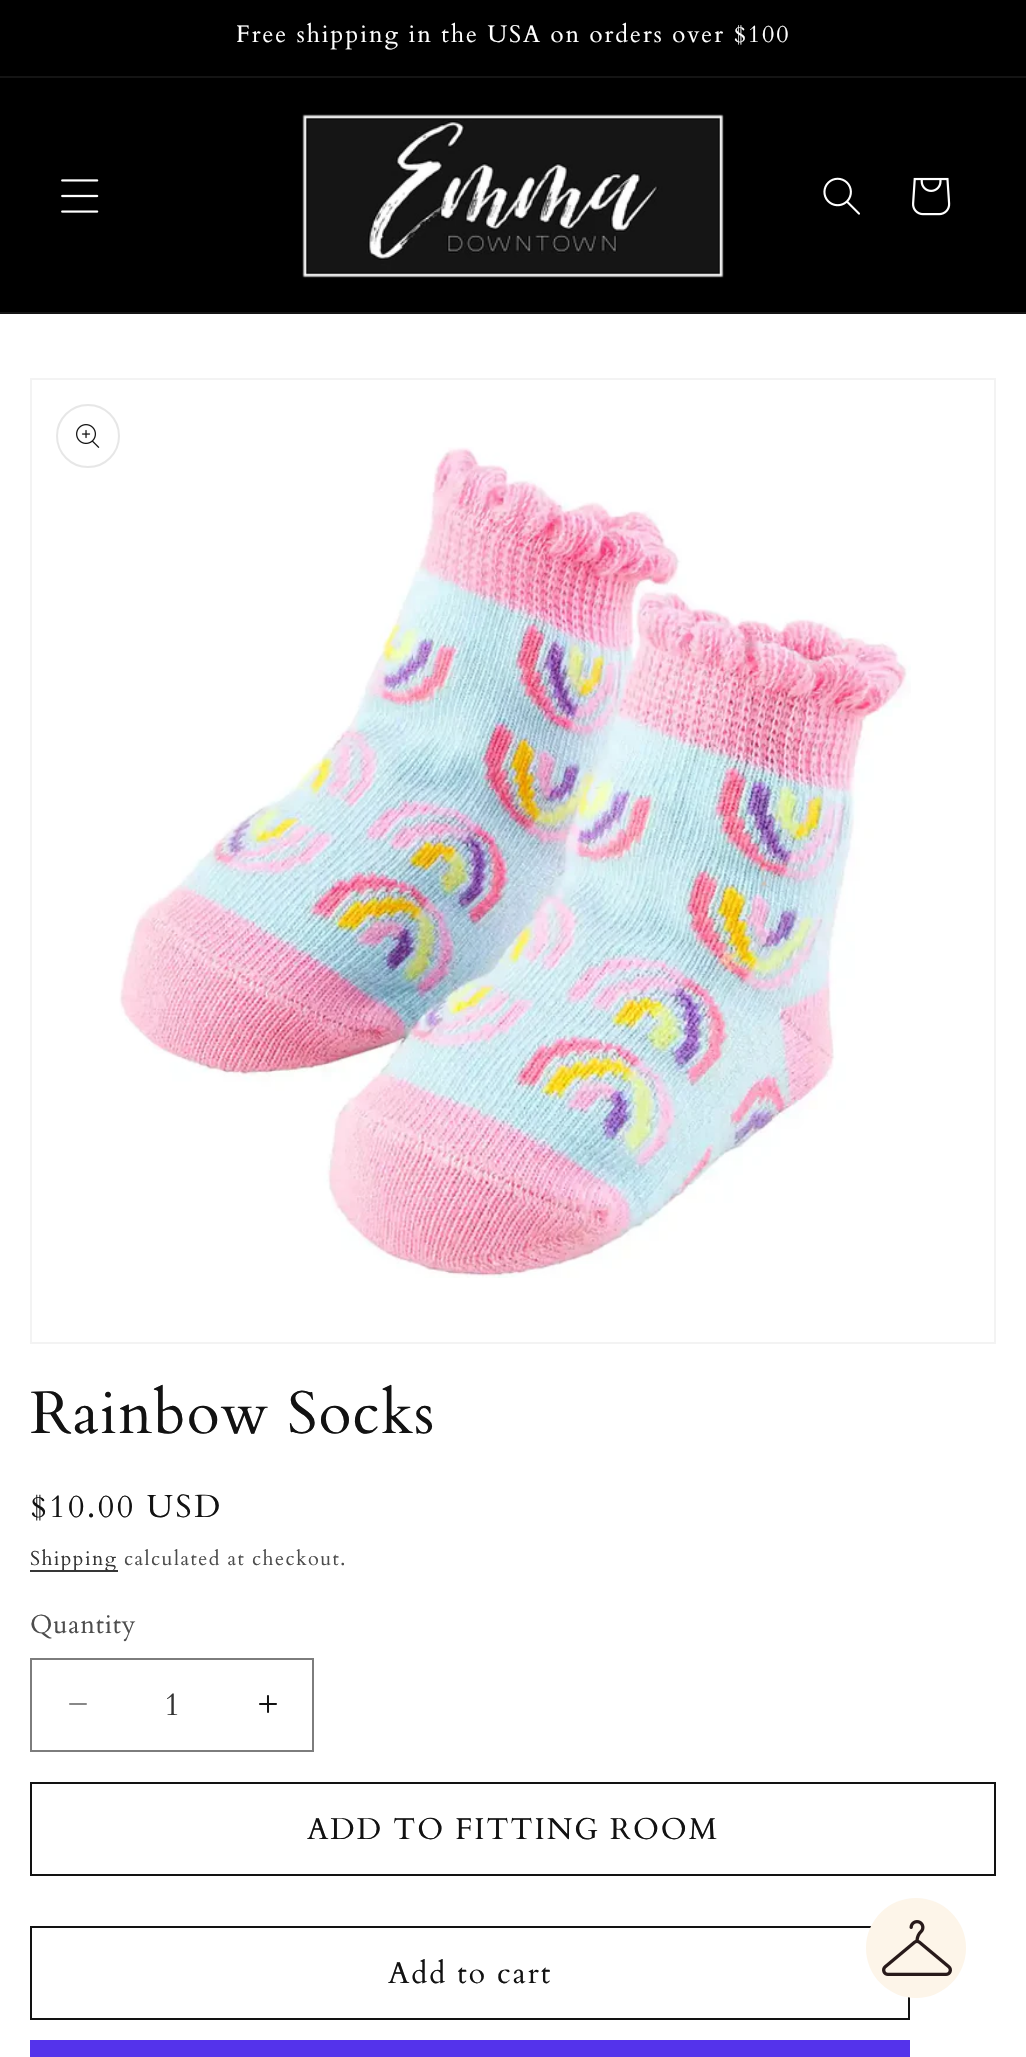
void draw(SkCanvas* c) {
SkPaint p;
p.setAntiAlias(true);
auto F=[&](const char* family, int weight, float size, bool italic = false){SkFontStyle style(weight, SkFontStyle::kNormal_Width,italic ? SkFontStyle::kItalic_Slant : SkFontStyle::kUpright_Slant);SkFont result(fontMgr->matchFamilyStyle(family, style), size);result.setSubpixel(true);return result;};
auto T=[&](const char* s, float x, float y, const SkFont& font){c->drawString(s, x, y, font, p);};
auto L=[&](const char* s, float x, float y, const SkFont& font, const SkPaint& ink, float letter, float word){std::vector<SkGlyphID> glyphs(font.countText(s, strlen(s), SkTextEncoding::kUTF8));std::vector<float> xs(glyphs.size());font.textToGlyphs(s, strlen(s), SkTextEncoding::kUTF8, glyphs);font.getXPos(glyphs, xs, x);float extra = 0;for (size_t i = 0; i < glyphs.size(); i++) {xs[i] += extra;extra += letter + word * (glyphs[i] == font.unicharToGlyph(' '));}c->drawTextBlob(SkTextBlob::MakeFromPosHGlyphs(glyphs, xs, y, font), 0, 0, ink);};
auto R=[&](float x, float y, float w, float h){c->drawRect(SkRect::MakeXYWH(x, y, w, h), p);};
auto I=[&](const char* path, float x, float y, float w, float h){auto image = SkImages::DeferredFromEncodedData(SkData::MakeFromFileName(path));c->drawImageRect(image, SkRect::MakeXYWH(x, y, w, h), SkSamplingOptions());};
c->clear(0xffffffff);
p.setColor(0xff000000);
R(0,0,1026,76);
p.setColor(0xff141414);
R(0,76,1026,2);
auto f1 = F("Cardo",400,24);
p.setColor(0xffffffff);
L("Free shipping in the USA on orders over $100",236,42,f1,p,2,0);
p.setColor(0xff000000);
R(0,78,1026,234);
p.setColor(0xff141414);
R(0,312,1026,2);
I("1.png",61,179,38,34);
I("2.png",302,114,422,164);
I("3.png",823,177,37,38);
I("4.png",912,177,39,39);
p.setStroke(true);
p.setStrokeWidth(2);
p.setColor(0xfff3f3f3);
c->drawRect(SkRect::MakeXYWH(31,379,964,964),p);
I("6.png",119,447,792,831);
p.setColor(0xffe7e7e7);
c->drawCircle(88,436,31,p);
I("5.png",76,424,24,24);
auto f2 = F("Cardo",400,60);
p.setStroke(false);
p.setColor(0xff121212);
L("Rainbow Socks",30,1433,f2,p,1.25,0);
auto f3 = F("Cardo",400,32);
L("$10.00 USD",30,1517,f3,p,2.6,0);
p.setColor(0xff363636);
R(30,1570,88,2);
auto f4 = F("Cardo",400,20);
p.setColor(0xff343434);
L("Shipping",30,1565,f4,p,1.4,0);
p.setColor(0xff4d4d4d);
L("calculated at checkout.",124,1565,f4,p,1.4,0);
auto f5 = F("Cardo",400,26);
L("Quantity",30,1633,f5,p,.75,0);
I("7.png",69,1703,18,2);
I("8.png",259,1695,18,18);
p.setStroke(true);
p.setColor(0xff7d7d7d);
c->drawRect(SkRect::MakeXYWH(31,1659,282,92),p);
p.setStroke(false);
p.setColor(0xff343434);
T("1",164,1715,f3);
p.setStroke(true);
p.setColor(0xff121212);
c->drawRect(SkRect::MakeXYWH(31,1783,964,92),p);
auto f6 = F("Cardo",400,30);
p.setStroke(false);
L("ADD TO FITTING ROOM",307,1839,f6,p,2,0);
p.setStroke(true);
c->drawRect(SkRect::MakeXYWH(31,1927,878,92),p);
p.setStroke(false);
L("Add to cart",388,1983,f6,p,2,0);
p.setColor(0xff5433eb);
R(30,2040,880,17);
p.setColor(0xfffdf5e9);
c->drawCircle(916,1948,50,p);
I("9.png",882,1920,70,56);
}
